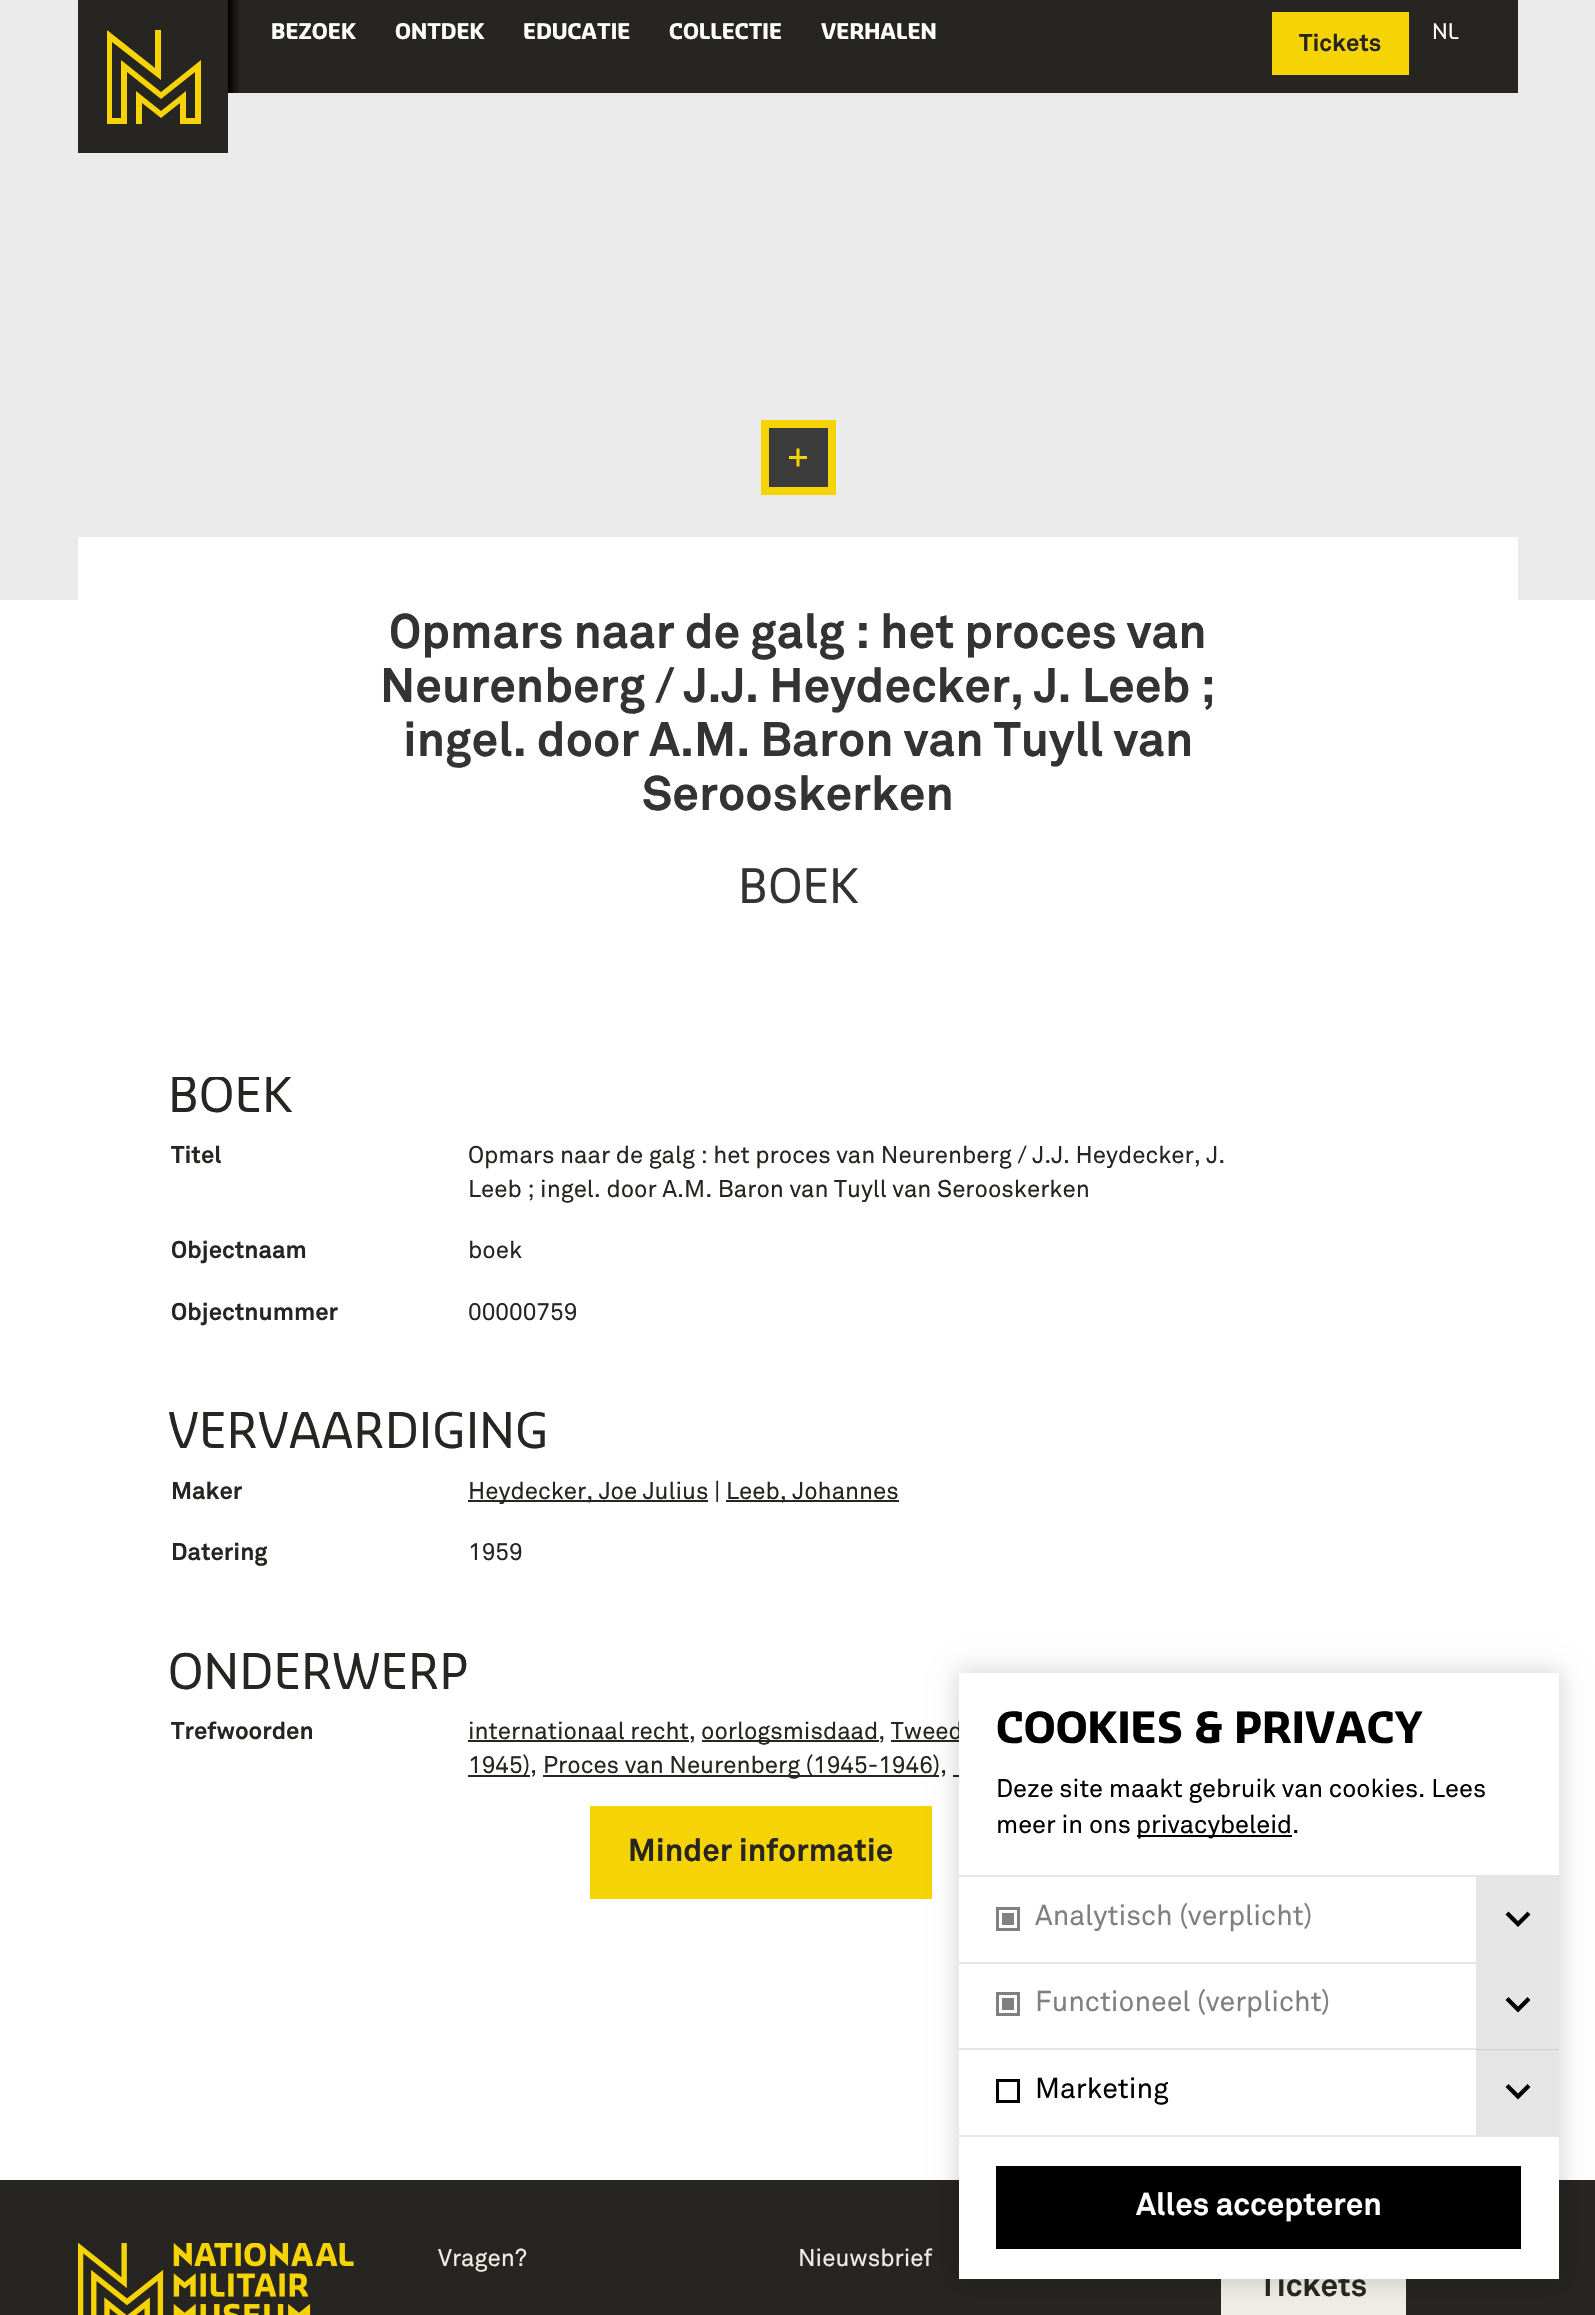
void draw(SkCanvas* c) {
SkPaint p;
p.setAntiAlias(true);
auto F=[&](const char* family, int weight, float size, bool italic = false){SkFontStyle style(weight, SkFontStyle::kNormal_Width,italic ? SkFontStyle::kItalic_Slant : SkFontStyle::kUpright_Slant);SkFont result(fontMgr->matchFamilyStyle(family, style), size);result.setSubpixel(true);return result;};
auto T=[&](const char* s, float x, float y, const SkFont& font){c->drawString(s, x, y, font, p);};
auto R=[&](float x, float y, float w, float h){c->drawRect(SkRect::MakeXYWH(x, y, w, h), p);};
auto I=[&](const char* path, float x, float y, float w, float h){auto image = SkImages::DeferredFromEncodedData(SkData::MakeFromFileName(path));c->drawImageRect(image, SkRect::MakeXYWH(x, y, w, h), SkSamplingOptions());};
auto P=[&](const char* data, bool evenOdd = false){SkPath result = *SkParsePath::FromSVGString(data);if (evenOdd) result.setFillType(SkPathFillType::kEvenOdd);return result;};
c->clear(0xffffffff);
p.setColor(0xffeaebea);
R(0,0,1595,600);
p.setColor(0xff262521);
R(78,0,150,153);
p.setColor(0xfff5d304);
c->drawPath(P("M107 124h20v-52l34 27l34-27v46h-9v-27l-25 20l-25-20v33h6v-21l19 15l19-15v21h21v-64l-40 32l-40-32v58h-9v-76l49 38v-50h-6v38l-48-38z",true),p);
p.setColor(0xff262521);
R(240,0,1278,93);
{
const SkColor colors[] = {0xff000000,0xff262521};
const float stops[] = {0,1};
const SkPoint ends[] = {{228,47}, {240,47}};
p.setShader(SkGradientShader::MakeLinear(ends, colors, stops, 2, SkTileMode::kClamp));
p.setAlpha(255);
}
R(228,0,12,93);
auto f1 = F("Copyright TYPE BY",700,21);
p.setShader(nullptr);
p.setColor(0xffffffff);
T("BEZOEK",271,39,f1);
T("ONTDEK",395,39,f1);
T("EDUCATIE",523,39,f1);
T("COLLECTIE",669,39,f1);
T("VERHALEN",821,39,f1);
auto f2 = F("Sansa",400,21);
T("NL",1432,39,f2);
p.setColor(0xfff5d304);
R(1272,12,137,63);
auto f3 = F("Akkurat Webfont",700,24);
p.setColor(0xff262521);
T("Tickets",1299,51,f3);
p.setColor(0xff3b3b3b);
c->drawRect(SkRect::MakeXYWH(765,424,67,67),p);
p.setStroke(true);
p.setStrokeWidth(8);
p.setColor(0xfff5d304);
c->drawRect(SkRect::MakeXYWH(765,424,67,67),p);
I("1.png",789,448,18,19);
p.setStroke(false);
p.setColor(0xffffffff);
R(78,537,1440,63);
auto f4 = F("Akkurat Webfont",700,48);
p.setColor(0xff333333);
T("Opmars naar de galg : het proces van",389,648,f4);
T("Neurenberg / J.J. Heydecker, J. Leeb ;",380,702,f4);
T("ingel. door A.M. Baron van Tuyll van",403,756,f4);
T("Serooskerken",642,810,f4);
auto f5 = F("Sansa",400,46.5);
T("BOEK",738,903,f5);
c->save();
c->clipRect(SkRect::MakeXYWH(93,1077,1410,1103));
auto f6 = F("Sansa",400,48);
p.setColor(0xff262521);
T("BOEK",168,1112,f6);
c->restore();
T("Titel",171,1163,f3);
auto f7 = F("Akkurat Webfont",400,24);
T("Opmars naar de galg : het proces van Neurenberg / J.J. Heydecker, J.",468,1163,f7);
T("Leeb ; ingel. door A.M. Baron van Tuyll van Serooskerken",468,1197,f7);
T("Objectnaam",171,1258,f3);
T("boek",468,1258,f7);
T("Objectnummer",171,1320,f3);
T("00000759",468,1320,f7);
T("VERVAARDIGING",168,1448,f6);
T("Maker",171,1499,f3);
R(468,1500,240,2);
T("Heydecker, Joe Julius |",468,1499,f7);
R(726,1500,173,2);
T("Leeb, Johannes",726,1499,f7);
T("Datering",171,1560,f3);
T("1959",468,1560,f7);
T("ONDERWERP",168,1689,f6);
T("Trefwoorden",171,1739,f3);
R(468,1740,221,2);
T("internationaal recht,",468,1739,f7);
R(702,1740,177,2);
T("oorlogsmisdaad, Tweed",701,1739,f7);
R(468,1775,62,2);
T("1945),",468,1773,f7);
R(891,1740,68,2);
R(543,1775,396,2);
T("Proces van Neurenberg (1945-1946),",543,1773,f7);
R(953,1775,6,2);
p.setColor(0xfff5d304);
R(590,1806,342,93);
auto f8 = F("Akkurat Webfont",700,31.5);
p.setColor(0xff262521);
T("Minder informatie",628,1861,f8);
R(0,2180,1595,135);
p.setColor(0xffeeede7);
R(1221,2279,185,36);
p.setColor(0x26000000);
p.setMaskFilter(SkMaskFilter::MakeBlur(kNormal_SkBlurStyle, 11));
c->drawRect(SkRect::MakeXYWH(956,1670,606,612),p);
p.setMaskFilter(nullptr);
p.setColor(0xff262521);
T("Tickets",1259,2296,f8);
p.setColor(0xffffffff);
R(959,1673,600,606);
auto f9 = F("Copyright TYPE BY",700,42);
p.setColor(0xff000000);
T("COOKIES & PRIVACY",996,1743,f9);
auto f10 = F("Akkurat Webfont",400,25.25);
T("Deze site maakt gebruik van cookies. Lees",996,1797,f10);
T("meer in ons",996,1833,f10);
R(1137,1835,155,2);
T("privacybeleid.",1136,1833,f10);
p.setColor(0xffe6e6e6);
R(959,2135,600,2);
R(959,1875,600,2);
p.setStroke(true);
p.setStrokeWidth(3);
p.setColor(0xff808080);
c->drawRect(SkRect::MakeXYWH(997.5,1908.5,21,21),p);
p.setStroke(false);
R(1002,1913,12,12);
auto f11 = F("Akkurat Webfont",400,28.4);
T("Analytisch (verplicht)",1035,1925,f11);
p.setColor(0xffe6e6e6);
R(1476,1877,83,85);
p.setColor(0xff000000);
c->drawPath(P("M1527.5 1911.5l3 3l-12.5 12.5l-12.5-12.5l3-3l9.5 9.5z"),p);
p.setColor(0xffe6e6e6);
R(959,1962,600,2);
p.setStroke(true);
p.setColor(0xff808080);
c->drawRect(SkRect::MakeXYWH(997.5,1993.5,21,21),p);
p.setStroke(false);
R(1002,1998,12,12);
T("Functioneel (verplicht)",1035,2011,f11);
p.setColor(0xffe6e6e6);
R(1476,1964,83,84);
p.setColor(0xff000000);
c->drawPath(P("M1527.5 1997l3 3l-12.5 12.5l-12.5-12.5l3-3l9.5 9.5z"),p);
p.setColor(0xffe6e6e6);
R(959,2048,600,2);
p.setStroke(true);
p.setColor(0xff000000);
c->drawRect(SkRect::MakeXYWH(997.5,2080.5,21,21),p);
p.setStroke(false);
T("Marketing",1035,2098,f11);
p.setColor(0x1a000000);
R(1476,2049,83,86);
p.setColor(0xff000000);
c->drawPath(P("M1527.5 2084l3 3l-12.5 12.5l-12.5-12.5l3-3l9.5 9.5z"),p);
R(996,2166,525,83);
p.setColor(0xffffffff);
T("Alles accepteren",1136,2215,f8);
I("2.png",78,2243,276,72);
p.setColor(0xffeeede7);
T("Vragen?",438,2266,f7);
T("Nieuwsbrief",798,2266,f7);
}
